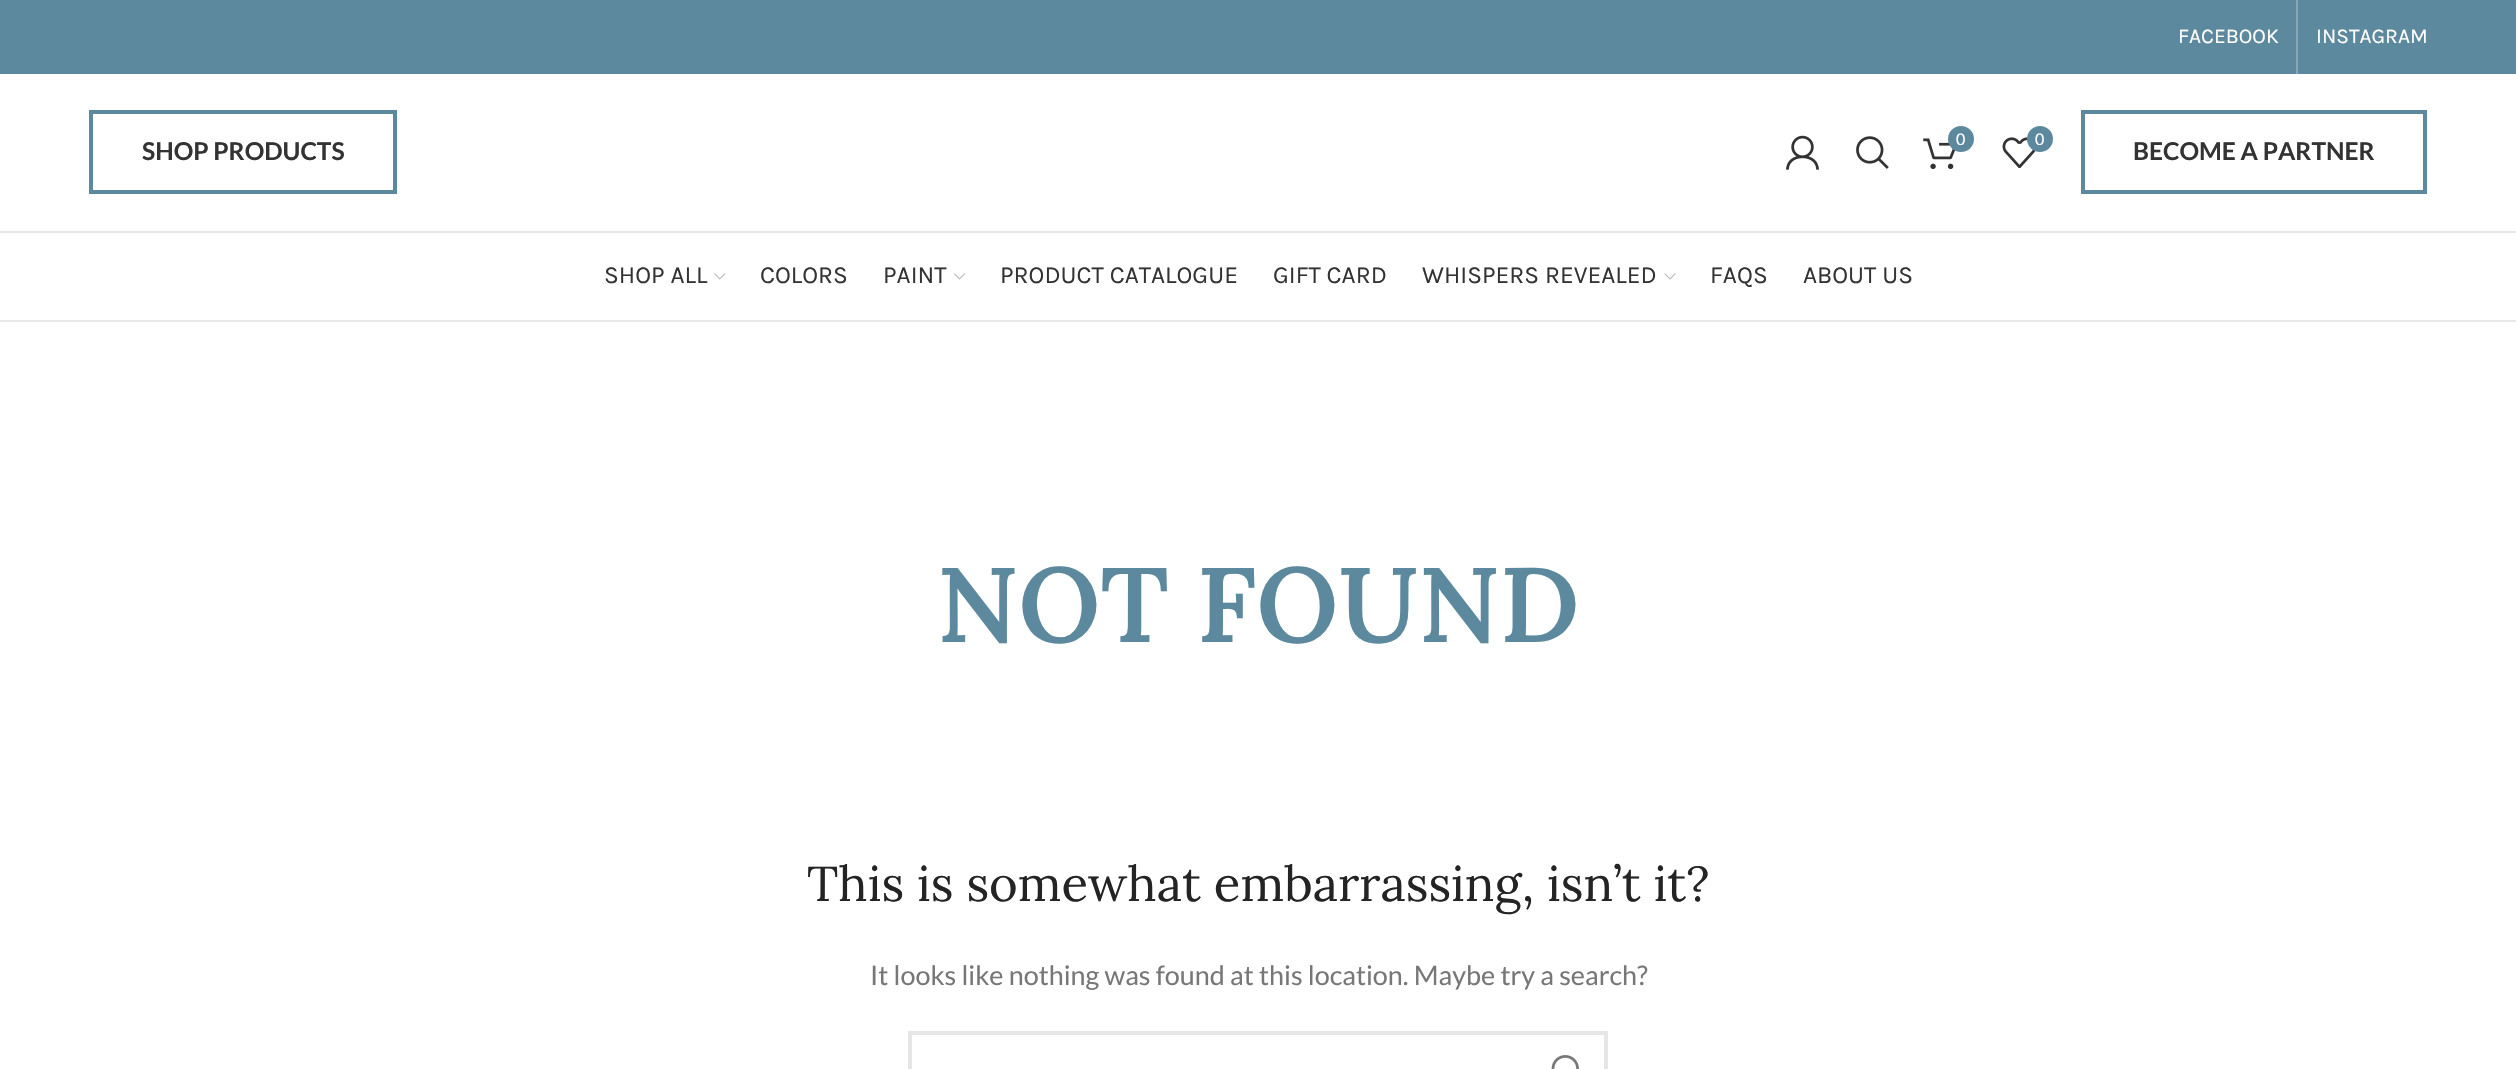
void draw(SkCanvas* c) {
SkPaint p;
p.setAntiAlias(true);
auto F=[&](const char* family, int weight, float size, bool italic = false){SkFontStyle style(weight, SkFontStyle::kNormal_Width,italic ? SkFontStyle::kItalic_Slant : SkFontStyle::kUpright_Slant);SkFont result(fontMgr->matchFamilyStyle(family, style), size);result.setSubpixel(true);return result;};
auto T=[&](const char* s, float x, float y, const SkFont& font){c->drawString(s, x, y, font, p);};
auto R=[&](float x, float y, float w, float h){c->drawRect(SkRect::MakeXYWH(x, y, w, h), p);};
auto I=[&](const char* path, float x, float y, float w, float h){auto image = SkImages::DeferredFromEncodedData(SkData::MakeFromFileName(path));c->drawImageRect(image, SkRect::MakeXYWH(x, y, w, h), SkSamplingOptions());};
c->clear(0xffffffff);
p.setColor(0xff5d899e);
R(0,0,2516,74);
auto f1 = F("Karla",400,21);
p.setColor(0xffffffff);
T("FACEBOOK",2178,43,f1);
p.setColor(0xff86a7b6);
R(2296,0,2,74);
p.setColor(0xffffffff);
T("INSTAGRAM",2316,43,f1);
p.setColor(0xffe8e8e8);
R(0,231,2516,2);
p.setStroke(true);
p.setStrokeWidth(4);
p.setColor(0xff5d899e);
c->drawRect(SkRect::MakeXYWH(91,112,304,80),p);
auto f2 = F("Lato",700,24.5);
p.setStroke(false);
p.setColor(0xff333333);
T("SHOP PRODUCTS",142,160,f2);
I("1.png",1786,135,33,35);
I("2.png",1856,136,33,33);
I("3.png",1923,138,33,32);
p.setColor(0xff5d899e);
c->drawCircle(1961,139,13,p);
auto f3 = F("Lato",400,16);
p.setColor(0xffffffff);
T("0",1956,145,f3);
I("4.png",2002,137,34,31);
p.setColor(0xff5d899e);
c->drawCircle(2040,139,13,p);
p.setColor(0xffffffff);
T("0",2035,145,f3);
p.setStroke(true);
p.setColor(0xff5d899e);
c->drawRect(SkRect::MakeXYWH(2083,112,342,80),p);
p.setStroke(false);
p.setColor(0xff333333);
T("BECOME A PARTNER",2133,160,f2);
p.setColor(0xffe8e8e8);
R(0,320,2516,2);
auto f4 = F("Karla",400,24.5);
p.setColor(0xff333333);
T("SHOP ALL",604,283,f4);
I("5.png",714,273,12,7);
T("COLORS",760,283,f4);
T("PAINT",883,283,f4);
I("6.png",954,273,11,7);
T("PRODUCT CATALOGUE",1000,283,f4);
T("GIFT CARD",1273,283,f4);
T("WHISPERS REVEALED",1422,283,f4);
I("7.png",1664,273,12,7);
T("FAQS",1710,283,f4);
T("ABOUT US",1803,283,f4);
auto f5 = F("Lora",600,105.75);
p.setColor(0xff5d899e);
T("NOT FOUND",937,642,f5);
auto f6 = F("Lora",400,49);
p.setColor(0xff242424);
T("This is somewhat embarrassing, isn’t it?",807,901,f6);
auto f7 = F("Lato",400,26.95);
p.setColor(0xff777777);
T("It looks like nothing was found at this location. Maybe try a search?",870,985,f7);
p.setStroke(true);
p.setColor(0xffe6e6e6);
c->drawRect(SkRect::MakeXYWH(910,1033,696,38),p);
I("8.png",1551,1055,28,14);
}
